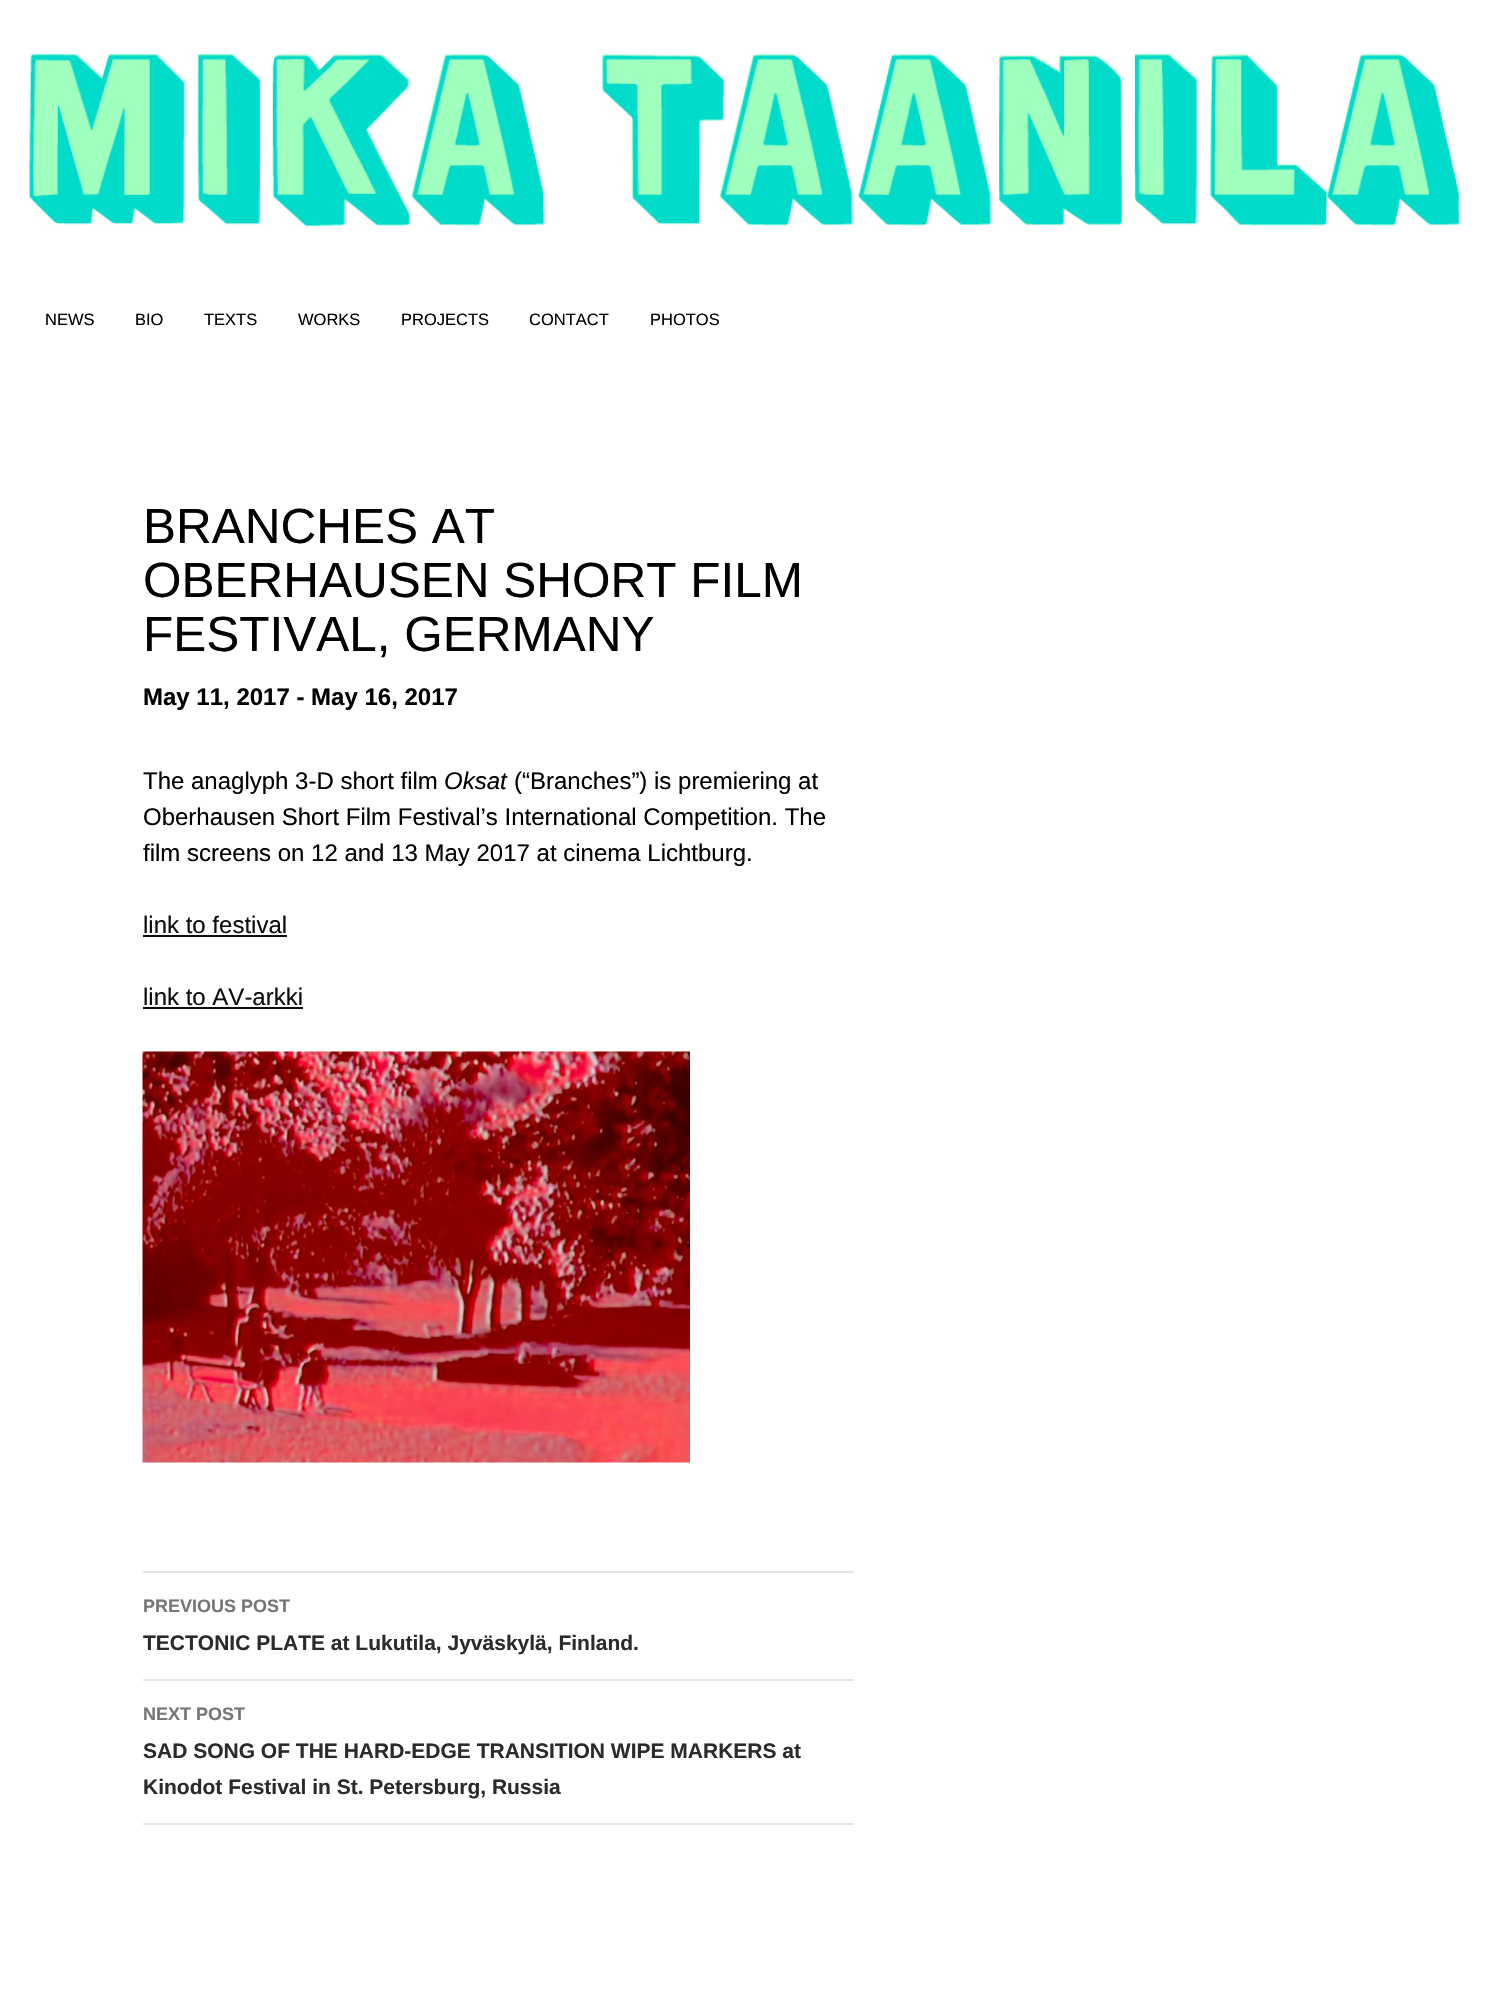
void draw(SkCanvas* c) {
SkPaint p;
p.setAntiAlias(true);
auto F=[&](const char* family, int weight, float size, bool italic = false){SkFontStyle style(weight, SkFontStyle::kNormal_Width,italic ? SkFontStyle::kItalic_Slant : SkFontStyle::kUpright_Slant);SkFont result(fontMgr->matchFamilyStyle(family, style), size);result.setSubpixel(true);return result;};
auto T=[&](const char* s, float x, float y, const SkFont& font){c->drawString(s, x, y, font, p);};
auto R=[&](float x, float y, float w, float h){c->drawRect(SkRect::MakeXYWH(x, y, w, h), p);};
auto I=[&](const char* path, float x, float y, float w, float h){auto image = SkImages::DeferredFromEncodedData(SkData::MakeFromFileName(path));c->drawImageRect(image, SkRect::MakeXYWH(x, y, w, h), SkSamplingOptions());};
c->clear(0xffffffff);
I("1.png",29,51,1431,176);
auto f1 = F("Liberation Sans",400,16.5);
p.setColor(0xff000000);
T("NEWS",45,325,f1);
T("BIO",135,325,f1);
T("TEXTS",204,325,f1);
T("WORKS",298,325,f1);
T("PROJECTS",401,325,f1);
T("CONTACT",529,325,f1);
T("PHOTOS",650,325,f1);
auto f2 = F("Liberation Sans",400,49.5);
T("BRANCHES AT",143,543,f2);
T("OBERHAUSEN SHORT FILM",143,597,f2);
T("FESTIVAL, GERMANY",143,651,f2);
auto f3 = F("Liberation Sans",700,24);
T("May 11, 2017 - May 16, 2017",143,705,f3);
auto f4 = F("Liberation Sans",400,24);
T("The anaglyph 3-D short film",143,789,f4);
auto f5 = F("Liberation Sans",400,24,true);
T("Oksat",444,789,f5);
T("(“Branches”) is premiering at",514,789,f4);
T("Oberhausen Short Film Festival’s International Competition. The",143,825,f4);
T("film screens on 12 and 13 May 2017 at cinema Lichtburg.",143,861,f4);
p.setColor(0xff0d0d0d);
T("link to festival",143,933,f4);
R(143,935,144,2);
T("link to AV-arkki",143,1005,f4);
R(143,1007,160,2);
I("2.png",142,1051,548,412);
p.setColor(0xffe6e6e6);
R(143,1571,711,2);
R(143,1679,711,2);
auto f6 = F("Liberation Sans",700,18);
p.setColor(0xff767676);
T("PREVIOUS POST",143,1612,f6);
auto f7 = F("Liberation Sans",700,21);
p.setColor(0xff2b2b2b);
T("TECTONIC PLATE at Lukutila, Jyväskylä, Finland.",143,1650,f7);
p.setColor(0xffe6e6e6);
R(143,1823,711,2);
p.setColor(0xff767676);
T("NEXT POST",143,1720,f6);
p.setColor(0xff2b2b2b);
T("SAD SONG OF THE HARD-EDGE TRANSITION WIPE MARKERS at",143,1758,f7);
T("Kinodot Festival in St. Petersburg, Russia",143,1794,f7);
}
